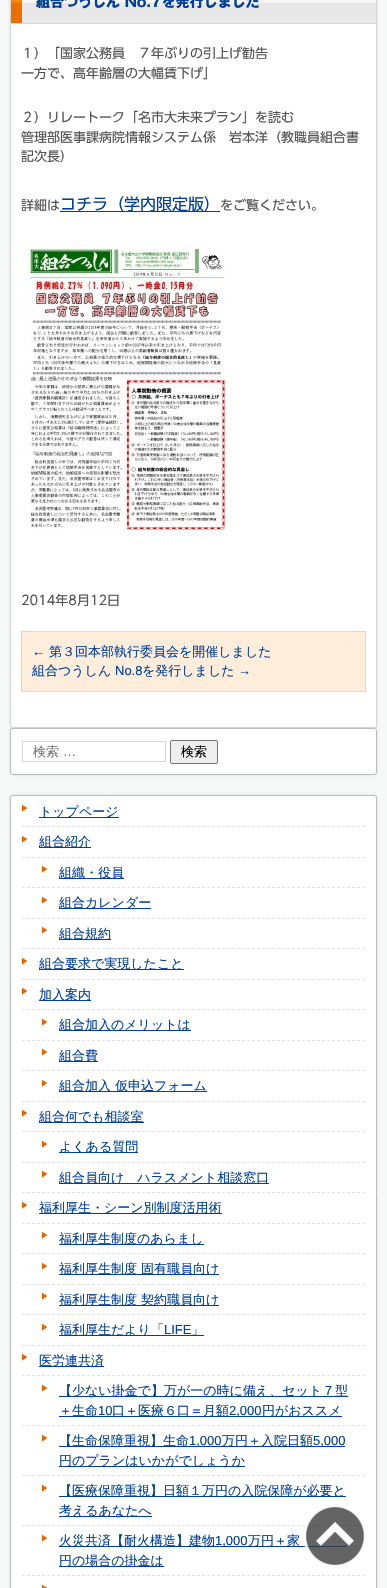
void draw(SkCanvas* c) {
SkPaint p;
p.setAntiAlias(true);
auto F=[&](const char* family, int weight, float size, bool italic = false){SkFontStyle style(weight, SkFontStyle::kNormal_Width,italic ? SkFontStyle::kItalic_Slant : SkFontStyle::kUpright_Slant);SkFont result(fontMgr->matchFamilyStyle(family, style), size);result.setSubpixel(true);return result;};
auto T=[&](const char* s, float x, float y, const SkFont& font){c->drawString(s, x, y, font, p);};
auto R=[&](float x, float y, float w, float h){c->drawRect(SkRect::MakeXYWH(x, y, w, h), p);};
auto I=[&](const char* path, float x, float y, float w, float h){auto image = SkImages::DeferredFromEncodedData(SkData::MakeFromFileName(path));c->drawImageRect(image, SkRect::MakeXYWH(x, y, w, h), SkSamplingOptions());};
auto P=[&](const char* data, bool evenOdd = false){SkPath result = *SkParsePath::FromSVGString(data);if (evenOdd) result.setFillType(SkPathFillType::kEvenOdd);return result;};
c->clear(0xfff7f8f8);
p.setColor(0xbfcdcdcd);
p.setMaskFilter(SkMaskFilter::MakeBlur(kNormal_SkBlurStyle, 1.5));
c->drawRoundRect(SkRect::MakeXYWH(10,-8,367,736),3,3,p);
p.setMaskFilter(nullptr);
p.setColor(0xffffffff);
c->drawPath(P("M10.5-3.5h366v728.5c0 1.5-1 2.5-2.5 2.5h-361c-1.5 0-2.5-1-2.5-2.5z"),p);
p.setStroke(true);
p.setStrokeWidth(1);
p.setColor(0xffd8d8d8);
c->drawPath(P("M10.5-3.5h366v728.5c0 1.5-1 2.5-2.5 2.5h-361c-1.5 0-2.5-1-2.5-2.5z"),p);
I("1.png",11,0,365,23);
p.setStroke(false);
R(11,23,365,1);
auto f1 = F("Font",700,14);
p.setColor(0xff004098);
T("組合つうしん No.7を発行しました",36,7,f1);
auto f2 = F("Font",400,13);
p.setColor(0xff535353);
T("１）「国家公務員　７年ぶりの引上げ勧告",21,58,f2);
T("一方で、高年齢層の大幅賃下げ」",21,78,f2);
T("２）リレートーク「名市大未来プラン」を読む",21,122,f2);
T("管理部医事課病院情報システム係　岩本洋（教職員組合書",21,142,f2);
T("記次長）",21,161,f2);
T("詳細は",21,210,f2);
p.setColor(0xff004098);
R(60,211,160,1);
auto f3 = F("Font",400,16);
T("コチラ（学内限定版）",60,210,f3);
p.setColor(0xff535353);
T("をご覧ください。",220,210,f2);
I("2.png",21,241,208,295);
T("2014年8月12日",21,605,f2);
p.setColor(0xffffeddb);
c->drawRect(SkRect::MakeXYWH(21.5,631.5,344,60),p);
p.setStroke(true);
p.setColor(0xffd8d8d8);
c->drawRect(SkRect::MakeXYWH(21.5,631.5,344,60),p);
auto f4 = F("Liberation Sans",400,13);
p.setStroke(false);
p.setColor(0xff004098);
T("←",32,656,f4);
auto f5 = F("WenQuanYi Zen Hei",500,13);
T("第３回本部執行委員会を開催しました",49,656,f5);
T("組合つうしん",32,675,f5);
T("No.8",115,675,f4);
T("を発行しました",142,675,f5);
T("→",238,675,f4);
p.setColor(0xbfcdcdcd);
p.setMaskFilter(SkMaskFilter::MakeBlur(kNormal_SkBlurStyle, 1.5));
c->drawRoundRect(SkRect::MakeXYWH(10,728,367,47),3,3,p);
p.setMaskFilter(nullptr);
p.setColor(0xffffffff);
c->drawRoundRect(SkRect::MakeXYWH(10.5,728.5,366,46),2.5,2.5,p);
p.setStroke(true);
p.setColor(0xffbcbcbc);
c->drawRoundRect(SkRect::MakeXYWH(10.5,728.5,366,46),2.5,2.5,p);
p.setColor(0xffd8d8d8);
c->drawRect(SkRect::MakeXYWH(22.5,741.5,143,20),p);
p.setStroke(false);
p.setColor(0xff757575);
T("検索",33,756,f5);
T("…",63,756,f4);
p.setColor(0xffefefef);
c->drawRoundRect(SkRect::MakeXYWH(170.5,740.5,47,23),1.5,1.5,p);
p.setStroke(true);
p.setColor(0xff767676);
c->drawRoundRect(SkRect::MakeXYWH(170.5,740.5,47,23),1.5,1.5,p);
p.setStroke(false);
p.setColor(0xff000000);
T("検索",181,756,f5);
p.setColor(0xbfcdcdcd);
p.setMaskFilter(SkMaskFilter::MakeBlur(kNormal_SkBlurStyle, 1.5));
c->drawRoundRect(SkRect::MakeXYWH(10,795,367,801),3,3,p);
p.setMaskFilter(nullptr);
p.setColor(0xffffffff);
c->drawRoundRect(SkRect::MakeXYWH(10.5,795.5,366,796),2.5,2.5,p);
p.setStroke(true);
p.setColor(0xffbcbcbc);
c->drawRoundRect(SkRect::MakeXYWH(10.5,795.5,366,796),2.5,2.5,p);
I("3.png",22,804,6,8);
p.setStroke(false);
p.setColor(0xff004098);
R(39,817,80,1);
T("トップページ",39,816,f5);
p.setStroke(true);
p.setColor(0xffe2e2e2);
p.setPathEffect(SkDashPathEffect::Make({{3,2}}, 0));
c->drawPath(P("M22 826.5h343"),p);
p.setPathEffect(nullptr);
I("3.png",22,835,6,8);
p.setStroke(false);
p.setColor(0xff004098);
R(39,847,52,1);
T("組合紹介",39,846,f5);
p.setStroke(true);
p.setColor(0xffe2e2e2);
p.setPathEffect(SkDashPathEffect::Make({{3,2}}, 0));
c->drawPath(P("M22 857.5h343"),p);
p.setPathEffect(nullptr);
I("3.png",42,865,6,8);
p.setStroke(false);
p.setColor(0xff004098);
R(59,878,65,1);
T("組織・役員",59,877,f5);
p.setStroke(true);
p.setColor(0xffe2e2e2);
p.setPathEffect(SkDashPathEffect::Make({{3,2}}, 0));
c->drawPath(P("M22 887.5h343"),p);
p.setPathEffect(nullptr);
I("3.png",42,896,6,8);
p.setStroke(false);
p.setColor(0xff004098);
R(59,908,92,1);
T("組合カレンダー",59,907,f5);
p.setStroke(true);
p.setColor(0xffe2e2e2);
p.setPathEffect(SkDashPathEffect::Make({{3,2}}, 0));
c->drawPath(P("M22 918.5h343"),p);
p.setPathEffect(nullptr);
I("3.png",42,926,6,8);
p.setStroke(false);
p.setColor(0xff004098);
R(59,939,52,1);
T("組合規約",59,938,f5);
p.setStroke(true);
p.setColor(0xffe2e2e2);
p.setPathEffect(SkDashPathEffect::Make({{3,2}}, 0));
c->drawPath(P("M22 948.5h343"),p);
p.setPathEffect(nullptr);
I("3.png",22,957,6,8);
p.setStroke(false);
p.setColor(0xff004098);
R(39,969,145,1);
T("組合要求で実現したこと",39,968,f5);
p.setStroke(true);
p.setColor(0xffe2e2e2);
p.setPathEffect(SkDashPathEffect::Make({{3,2}}, 0));
c->drawPath(P("M22 979.5h343"),p);
p.setPathEffect(nullptr);
I("3.png",22,987,6,8);
p.setStroke(false);
p.setColor(0xff004098);
R(39,1000,52,1);
T("加入案内",39,999,f5);
p.setStroke(true);
p.setColor(0xffe2e2e2);
p.setPathEffect(SkDashPathEffect::Make({{3,2}}, 0));
c->drawPath(P("M22 1009.5h343"),p);
p.setPathEffect(nullptr);
I("3.png",42,1018,6,8);
p.setStroke(false);
p.setColor(0xff004098);
R(59,1030,132,1);
T("組合加入のメリットは",59,1029,f5);
p.setStroke(true);
p.setColor(0xffe2e2e2);
p.setPathEffect(SkDashPathEffect::Make({{3,2}}, 0));
c->drawPath(P("M22 1040.5h343"),p);
p.setPathEffect(nullptr);
I("3.png",42,1048,6,8);
p.setStroke(false);
p.setColor(0xff004098);
R(59,1061,39,1);
T("組合費",59,1060,f5);
p.setStroke(true);
p.setColor(0xffe2e2e2);
p.setPathEffect(SkDashPathEffect::Make({{3,2}}, 0));
c->drawPath(P("M22 1070.5h343"),p);
p.setPathEffect(nullptr);
I("3.png",42,1079,6,8);
p.setStroke(false);
p.setColor(0xff004098);
R(59,1091,148,1);
T("組合加入 仮申込フォーム",59,1090,f5);
p.setStroke(true);
p.setColor(0xffe2e2e2);
p.setPathEffect(SkDashPathEffect::Make({{3,2}}, 0));
c->drawPath(P("M22 1101.5h343"),p);
p.setPathEffect(nullptr);
I("3.png",22,1109,6,8);
p.setStroke(false);
p.setColor(0xff004098);
R(39,1122,105,1);
T("組合何でも相談室",39,1121,f5);
p.setStroke(true);
p.setColor(0xffe2e2e2);
p.setPathEffect(SkDashPathEffect::Make({{3,2}}, 0));
c->drawPath(P("M22 1131.5h343"),p);
p.setPathEffect(nullptr);
I("3.png",42,1140,6,8);
p.setStroke(false);
p.setColor(0xff004098);
R(59,1152,79,1);
T("よくある質問",59,1151,f5);
p.setStroke(true);
p.setColor(0xffe2e2e2);
p.setPathEffect(SkDashPathEffect::Make({{3,2}}, 0));
c->drawPath(P("M22 1162.5h343"),p);
p.setPathEffect(nullptr);
I("3.png",42,1170,6,8);
p.setStroke(false);
p.setColor(0xff004098);
R(59,1183,210,1);
T("組合員向け　ハラスメント相談窓口",59,1182,f5);
p.setStroke(true);
p.setColor(0xffe2e2e2);
p.setPathEffect(SkDashPathEffect::Make({{3,2}}, 0));
c->drawPath(P("M22 1192.5h343"),p);
p.setPathEffect(nullptr);
I("3.png",22,1201,6,8);
p.setStroke(false);
p.setColor(0xff004098);
R(39,1213,183,1);
T("福利厚生・シーン別制度活用術",39,1212,f5);
p.setStroke(true);
p.setColor(0xffe2e2e2);
p.setPathEffect(SkDashPathEffect::Make({{3,2}}, 0));
c->drawPath(P("M22 1223.5h343"),p);
p.setPathEffect(nullptr);
I("3.png",42,1231,6,8);
p.setStroke(false);
p.setColor(0xff004098);
R(59,1244,145,1);
T("福利厚生制度のあらまし",59,1243,f5);
p.setStroke(true);
p.setColor(0xffe2e2e2);
p.setPathEffect(SkDashPathEffect::Make({{3,2}}, 0));
c->drawPath(P("M22 1253.5h343"),p);
p.setPathEffect(nullptr);
I("3.png",42,1262,6,8);
p.setStroke(false);
p.setColor(0xff004098);
R(59,1274,160,1);
T("福利厚生制度 固有職員向け",59,1273,f5);
p.setStroke(true);
p.setColor(0xffe2e2e2);
p.setPathEffect(SkDashPathEffect::Make({{3,2}}, 0));
c->drawPath(P("M22 1284.5h343"),p);
p.setPathEffect(nullptr);
I("3.png",42,1292,6,8);
p.setStroke(false);
p.setColor(0xff004098);
R(59,1305,160,1);
T("福利厚生制度 契約職員向け",59,1304,f5);
p.setStroke(true);
p.setColor(0xffe2e2e2);
p.setPathEffect(SkDashPathEffect::Make({{3,2}}, 0));
c->drawPath(P("M22 1314.5h343"),p);
p.setPathEffect(nullptr);
I("3.png",42,1323,6,8);
p.setStroke(false);
p.setColor(0xff004098);
R(59,1335,145,1);
T("福利厚生だより「",59,1334,f5);
T("LIFE",164,1334,f4);
T("」",191,1334,f5);
p.setStroke(true);
p.setColor(0xffe2e2e2);
p.setPathEffect(SkDashPathEffect::Make({{3,2}}, 0));
c->drawPath(P("M22 1345.5h343"),p);
p.setPathEffect(nullptr);
I("3.png",22,1353,6,8);
p.setStroke(false);
p.setColor(0xff004098);
R(39,1366,65,1);
T("医労連共済",39,1365,f5);
p.setStroke(true);
p.setColor(0xffe2e2e2);
p.setPathEffect(SkDashPathEffect::Make({{3,2}}, 0));
c->drawPath(P("M22 1375.5h343"),p);
p.setPathEffect(nullptr);
I("3.png",42,1384,6,8);
p.setStroke(false);
p.setColor(0xff004098);
R(59,1396,289,1);
T("【少ない掛金で】万が一の時に備え、セット７型",59,1395,f5);
R(59,1416,283,1);
T("＋生命",59,1415,f5);
T("10",98,1415,f4);
T("口＋医療６口＝月額",112,1415,f5);
T("2,000",229,1415,f4);
T("円がおススメ",262,1415,f5);
p.setStroke(true);
p.setColor(0xffe2e2e2);
p.setPathEffect(SkDashPathEffect::Make({{3,2}}, 0));
c->drawPath(P("M22 1425.5h343"),p);
p.setPathEffect(nullptr);
I("3.png",42,1434,6,8);
p.setStroke(false);
p.setColor(0xff004098);
R(59,1446,286,1);
T("【生命保障重視】生命",59,1445,f5);
T("1,000",189,1445,f4);
T("万円＋入院日額",222,1445,f5);
T("5,000",313,1445,f4);
R(59,1466,186,1);
T("円のプランはいかがでしょうか",59,1465,f5);
p.setStroke(true);
p.setColor(0xffe2e2e2);
p.setPathEffect(SkDashPathEffect::Make({{3,2}}, 0));
c->drawPath(P("M22 1475.5h343"),p);
p.setPathEffect(nullptr);
I("3.png",42,1484,6,8);
p.setStroke(false);
p.setColor(0xff004098);
R(59,1496,287,1);
T("【医療保障重視】日額１万円の入院保障が必要と",59,1495,f5);
R(59,1516,93,1);
T("考えるあなたへ",59,1515,f5);
p.setStroke(true);
p.setColor(0xffe2e2e2);
p.setPathEffect(SkDashPathEffect::Make({{3,2}}, 0));
c->drawPath(P("M22 1525.5h343"),p);
p.setPathEffect(nullptr);
I("3.png",42,1534,6,8);
p.setStroke(false);
p.setColor(0xff004098);
R(59,1546,288,1);
T("火災共済【耐火構造】建物",59,1545,f5);
T("1,000",215,1545,f4);
T("万円＋家",248,1545,f5);
R(59,1566,105,1);
T("円の場合の掛金は",59,1565,f5);
p.setStroke(true);
p.setColor(0xffe2e2e2);
p.setPathEffect(SkDashPathEffect::Make({{3,2}}, 0));
c->drawPath(P("M22 1575.5h343"),p);
p.setPathEffect(nullptr);
I("4.png",42,1584,6,4);
I("5.png",303,1504,64,64);
}
